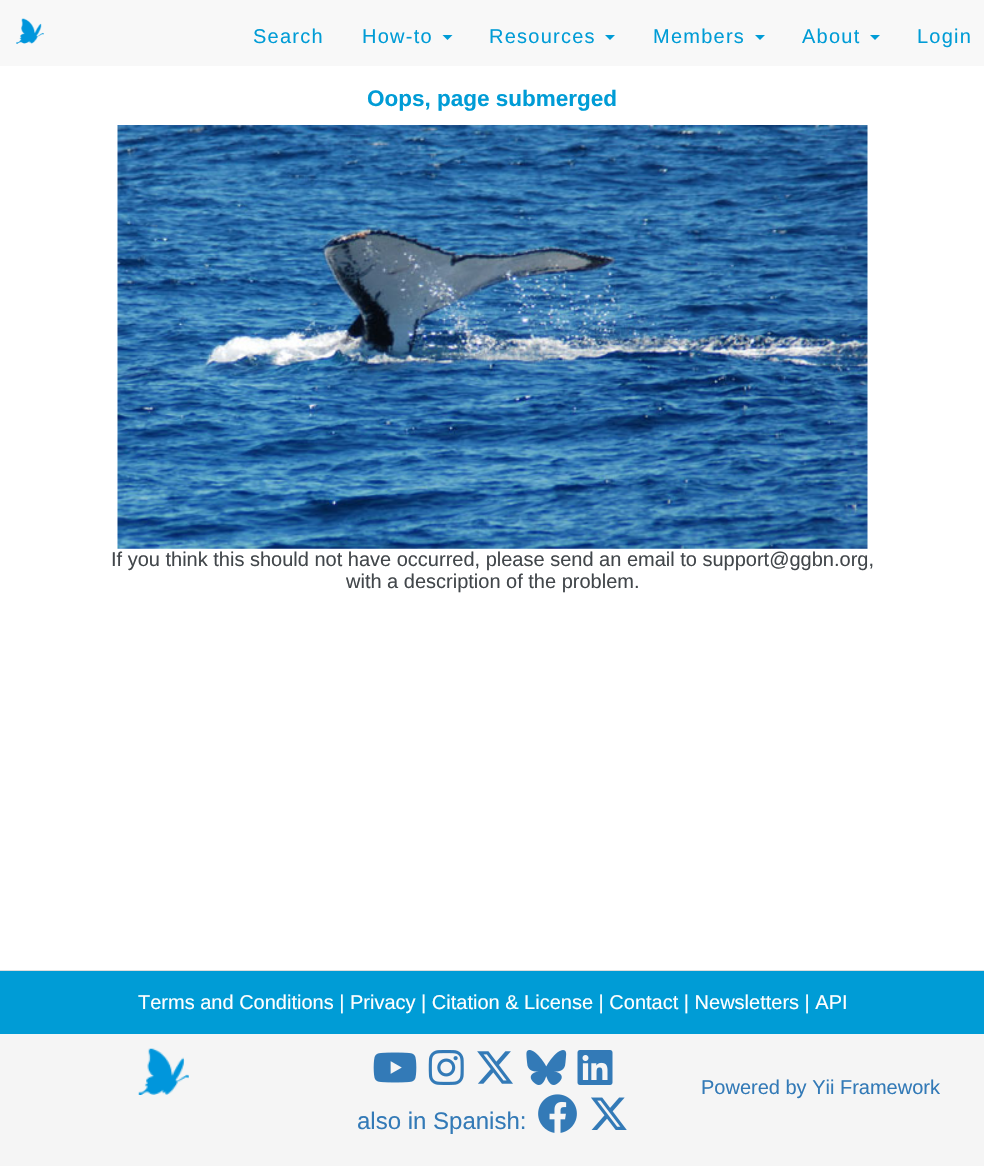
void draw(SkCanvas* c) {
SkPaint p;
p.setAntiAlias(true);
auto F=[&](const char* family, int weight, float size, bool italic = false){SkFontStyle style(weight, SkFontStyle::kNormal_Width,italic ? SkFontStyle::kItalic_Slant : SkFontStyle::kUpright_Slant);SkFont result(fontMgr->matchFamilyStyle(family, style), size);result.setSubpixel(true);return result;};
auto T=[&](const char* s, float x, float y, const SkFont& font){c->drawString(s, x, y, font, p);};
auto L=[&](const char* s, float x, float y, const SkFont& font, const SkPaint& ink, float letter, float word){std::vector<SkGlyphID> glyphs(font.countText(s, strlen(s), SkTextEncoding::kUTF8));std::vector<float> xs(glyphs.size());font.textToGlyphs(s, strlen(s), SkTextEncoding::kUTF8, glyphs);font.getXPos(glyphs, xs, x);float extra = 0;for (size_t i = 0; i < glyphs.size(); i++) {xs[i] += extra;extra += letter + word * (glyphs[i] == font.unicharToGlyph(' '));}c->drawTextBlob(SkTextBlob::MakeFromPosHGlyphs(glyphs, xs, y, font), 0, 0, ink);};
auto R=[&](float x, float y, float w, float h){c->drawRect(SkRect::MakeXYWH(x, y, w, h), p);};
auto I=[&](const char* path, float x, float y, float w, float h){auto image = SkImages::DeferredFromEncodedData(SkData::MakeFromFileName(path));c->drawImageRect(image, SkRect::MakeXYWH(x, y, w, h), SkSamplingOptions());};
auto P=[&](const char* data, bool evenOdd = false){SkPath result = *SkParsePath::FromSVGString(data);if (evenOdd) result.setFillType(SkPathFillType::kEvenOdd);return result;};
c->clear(0xffffffff);
p.setColor(0xfff8f8f8);
R(0,0,984,66);
I("1.png",16,18,28,26);
auto f1 = F("Liberation Sans",400,20);
p.setColor(0xff009cd6);
L("Search",253,43,f1,p,1.25,0);
L("How-to",362,43,f1,p,1.25,0);
c->drawPath(P("M442.5 35h10l-5 5z"),p);
L("Resources",489,43,f1,p,1.25,0);
c->drawPath(P("M605 35h10l-5 5z"),p);
L("Members",653,43,f1,p,1.25,0);
c->drawPath(P("M755 35h10l-5 5z"),p);
L("About",802,43,f1,p,1.25,0);
c->drawPath(P("M870 35h10l-5 5z"),p);
L("Login",917,43,f1,p,1.25,0);
auto f2 = F("Liberation Sans",700,22.5);
T("Oops, page submerged",367,106,f2);
I("2.png",117,125,751,424);
p.setColor(0xff42474b);
T("If you think this should not have occurred, please send an email to support@ggbn.org,",111,566,f1);
T("with a description of the problem.",346,588,f1);
p.setColor(0xfff5f5f5);
R(0,1034,984,132);
p.setColor(0xffdddddd);
R(0,970,984,1);
p.setColor(0xff009cd6);
R(0,971,984,63);
p.setColor(0xffffffff);
T("Terms and Conditions | Privacy | Citation & License | Contact | Newsletters | API",138,1009,f1);
I("3.png",138,1048,51,47);
p.setColor(0xff337ab7);
T("Powered by Yii Framework",701,1094,f1);
I("4.png",373,1052,44,31);
I("5.png",428,1050,36,35);
I("6.png",477,1051,36,33);
I("7.png",526,1050,41,35);
I("8.png",577,1050,36,35);
auto f3 = F("Liberation Sans",400,24);
T("also in Spanish:",357,1129,f3);
I("9.png",538,1094,39,39);
I("10.png",591,1097,36,33);
}
